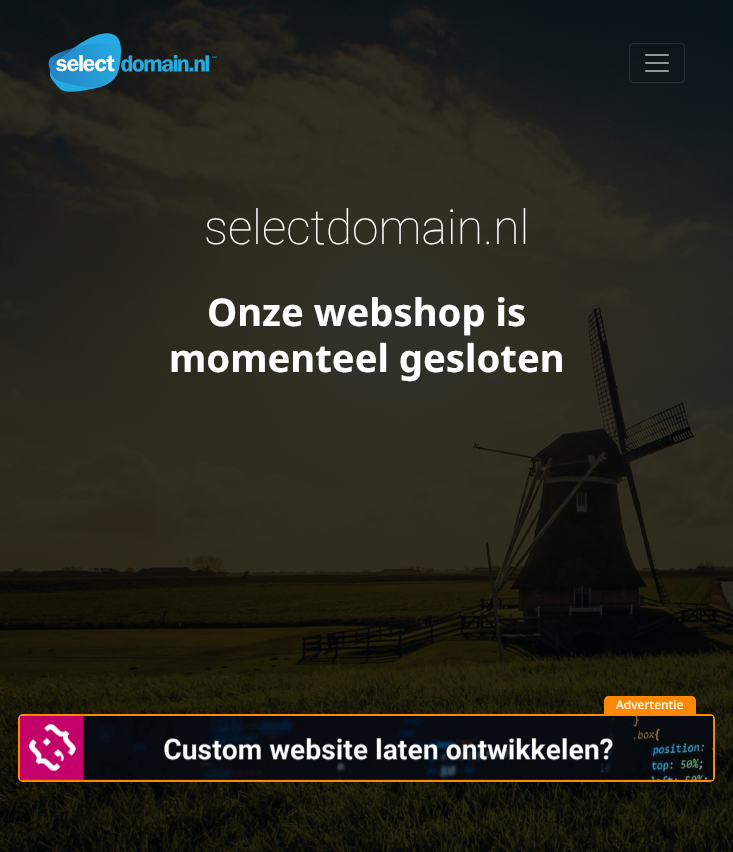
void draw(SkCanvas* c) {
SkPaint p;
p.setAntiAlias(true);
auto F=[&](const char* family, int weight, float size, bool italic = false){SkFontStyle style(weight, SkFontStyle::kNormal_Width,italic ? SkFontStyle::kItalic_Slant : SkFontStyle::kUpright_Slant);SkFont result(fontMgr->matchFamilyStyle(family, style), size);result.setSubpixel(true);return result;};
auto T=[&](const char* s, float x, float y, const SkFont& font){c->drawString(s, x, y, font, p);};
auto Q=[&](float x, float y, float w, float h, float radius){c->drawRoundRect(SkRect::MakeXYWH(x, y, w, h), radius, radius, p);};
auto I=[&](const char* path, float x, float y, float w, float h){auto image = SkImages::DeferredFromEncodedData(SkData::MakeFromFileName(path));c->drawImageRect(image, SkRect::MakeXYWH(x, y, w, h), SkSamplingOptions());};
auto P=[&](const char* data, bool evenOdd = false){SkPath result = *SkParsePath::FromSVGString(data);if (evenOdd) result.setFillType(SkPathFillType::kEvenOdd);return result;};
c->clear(0xffffffff);
I("1.png",0,0,733,852);
I("2.png",48,33,169,59);
p.setStroke(true);
p.setStrokeWidth(1);
p.setColor(0x1affffff);
c->drawRoundRect(SkRect::MakeXYWH(629.5,43.5,55,39),3.5,3.5,p);
I("3.png",645,54,24,18);
auto f1 = F("Roboto",100,48);
p.setStroke(false);
p.setColor(0xffffffff);
T("selectdomain.nl",204,244,f1);
auto f2 = F("Noto Sans",700,38.25);
T("Onze webshop is",207,326,f2);
T("momenteel gesloten",169,372,f2);
p.setColor(0xffff8800);
Q(18,714,697,68,5);
c->drawPath(P("M609 696h82c3 0 5 2 5 5v13h-92v-13c0-3 2-5 5-5z"),p);
auto f3 = F("Noto Sans",500,12);
p.setColor(0xffffffff);
T("Advertentie",616,709,f3);
I("4.png",20,716,693,64);
}
